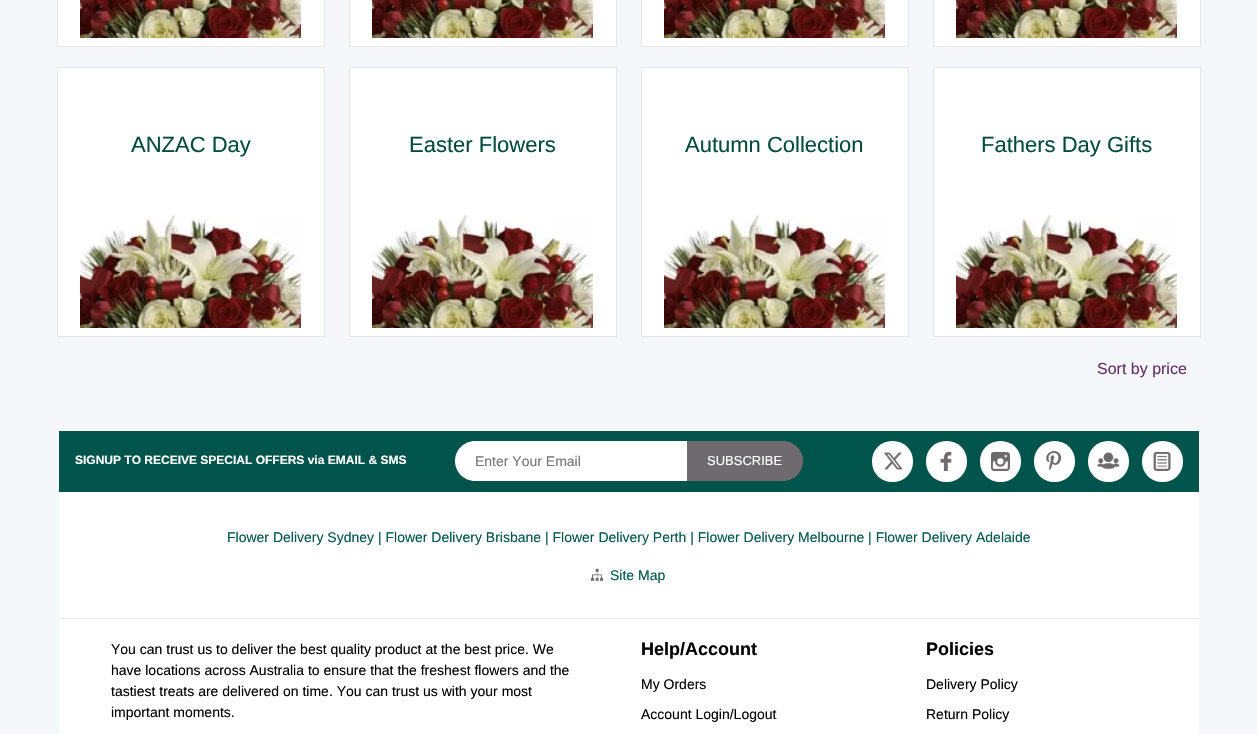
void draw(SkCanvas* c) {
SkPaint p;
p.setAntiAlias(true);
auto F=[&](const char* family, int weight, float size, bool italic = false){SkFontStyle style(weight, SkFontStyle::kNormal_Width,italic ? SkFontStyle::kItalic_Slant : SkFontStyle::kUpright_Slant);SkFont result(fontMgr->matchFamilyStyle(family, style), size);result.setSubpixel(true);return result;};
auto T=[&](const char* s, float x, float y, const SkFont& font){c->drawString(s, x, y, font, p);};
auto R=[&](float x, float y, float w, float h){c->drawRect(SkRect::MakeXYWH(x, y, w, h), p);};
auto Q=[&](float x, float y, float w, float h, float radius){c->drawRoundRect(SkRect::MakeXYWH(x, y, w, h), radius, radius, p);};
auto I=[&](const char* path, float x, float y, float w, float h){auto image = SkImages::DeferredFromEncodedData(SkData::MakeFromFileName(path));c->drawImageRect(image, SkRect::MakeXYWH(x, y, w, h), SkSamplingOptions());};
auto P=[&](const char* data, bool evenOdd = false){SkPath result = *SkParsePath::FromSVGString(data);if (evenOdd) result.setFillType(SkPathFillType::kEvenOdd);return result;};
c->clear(0xfff5f7fa);
p.setColor(0xffffffff);
c->drawRect(SkRect::MakeXYWH(57.5,-.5,267,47),p);
p.setStroke(true);
p.setStrokeWidth(1);
p.setColor(0xffe6e6e6);
c->drawRect(SkRect::MakeXYWH(57.5,-.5,267,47),p);
I("1.png",80,0,221,38);
p.setStroke(false);
p.setColor(0xffffffff);
c->drawRect(SkRect::MakeXYWH(349.5,-.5,267,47),p);
p.setStroke(true);
p.setColor(0xffe6e6e6);
c->drawRect(SkRect::MakeXYWH(349.5,-.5,267,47),p);
I("1.png",372,0,221,38);
p.setStroke(false);
p.setColor(0xffffffff);
c->drawRect(SkRect::MakeXYWH(641.5,-.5,267,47),p);
p.setStroke(true);
p.setColor(0xffe6e6e6);
c->drawRect(SkRect::MakeXYWH(641.5,-.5,267,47),p);
I("1.png",664,0,221,38);
p.setStroke(false);
p.setColor(0xffffffff);
c->drawRect(SkRect::MakeXYWH(933.5,-.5,267,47),p);
p.setStroke(true);
p.setColor(0xffe6e6e6);
c->drawRect(SkRect::MakeXYWH(933.5,-.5,267,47),p);
I("1.png",956,0,221,38);
p.setStroke(false);
p.setColor(0xffffffff);
c->drawRect(SkRect::MakeXYWH(57.5,67.5,267,269),p);
p.setStroke(true);
p.setColor(0xffe6e6e6);
c->drawRect(SkRect::MakeXYWH(57.5,67.5,267,269),p);
auto f1 = F("Liberation Sans",400,22);
p.setStroke(false);
p.setColor(0xff004b3e);
T("ANZAC Day",131,152,f1);
I("2.png",80,214,221,114);
p.setColor(0xffffffff);
c->drawRect(SkRect::MakeXYWH(349.5,67.5,267,269),p);
p.setStroke(true);
p.setColor(0xffe6e6e6);
c->drawRect(SkRect::MakeXYWH(349.5,67.5,267,269),p);
p.setStroke(false);
p.setColor(0xff004b3e);
T("Easter Flowers",409,152,f1);
I("2.png",372,214,221,114);
p.setColor(0xffffffff);
c->drawRect(SkRect::MakeXYWH(641.5,67.5,267,269),p);
p.setStroke(true);
p.setColor(0xffe6e6e6);
c->drawRect(SkRect::MakeXYWH(641.5,67.5,267,269),p);
p.setStroke(false);
p.setColor(0xff004b3e);
T("Autumn Collection",685,152,f1);
I("2.png",664,214,221,114);
p.setColor(0xffffffff);
c->drawRect(SkRect::MakeXYWH(933.5,67.5,267,269),p);
p.setStroke(true);
p.setColor(0xffe6e6e6);
c->drawRect(SkRect::MakeXYWH(933.5,67.5,267,269),p);
p.setStroke(false);
p.setColor(0xff004b3e);
T("Fathers Day Gifts",981,152,f1);
I("2.png",956,214,221,114);
auto f2 = F("Liberation Sans",400,16);
p.setColor(0xff632f64);
T("Sort by price",1097,374,f2);
p.setColor(0xff00544b);
R(59,431,1140,61);
auto f3 = F("Liberation Sans",700,12);
p.setColor(0xffffffff);
T("SIGNUP TO RECEIVE SPECIAL OFFERS via EMAIL & SMS",75,464,f3);
c->drawPath(P("M475 441h212v40h-212c-11 0-20-9-20-20c0-11 9-20 20-20z"),p);
auto f4 = F("Liberation Sans",400,14);
p.setColor(0xff757575);
T("Enter Your Email",475,466,f4);
p.setColor(0xff6e6a6d);
c->drawPath(P("M687 441h96c11 0 20 9 20 20c0 11-9 20-20 20h-96z"),p);
auto f5 = F("Liberation Sans",400,13);
p.setColor(0xffffffff);
T("SUBSCRIBE",707,465,f5);
Q(872,441,41,41,20);
I("3.png",884,452,19,18);
Q(926,441,41,41,20);
I("4.png",940,452,12,19);
Q(980,441,41,41,20);
I("5.png",991,452,19,19);
Q(1034,441,41,41,20);
I("6.png",1046,451,16,20);
Q(1088,441,41,41,20);
I("7.png",1097,452,23,18);
Q(1142,441,41,41,20);
I("8.png",1153,452,18,19);
R(59,492,1140,126);
p.setColor(0xffe6e6e6);
R(59,618,1140,1);
p.setColor(0xff00544b);
T("Flower Delivery Sydney | Flower Delivery Brisbane | Flower Delivery Perth | Flower Delivery Melbourne | Flower Delivery Adelaide",227,542,f4);
I("9.png",591,568,12,13);
T("Site Map",610,580,f4);
p.setColor(0xffffffff);
R(59,619,1140,115);
p.setColor(0xff000000);
T("You can trust us to deliver the best quality product at the best price. We",111,654,f4);
T("have locations across Australia to ensure that the freshest flowers and the",111,675,f4);
T("tastiest treats are delivered on time. You can trust us with your most",111,696,f4);
T("important moments.",111,717,f4);
auto f6 = F("Liberation Sans",700,18);
T("Help/Account",641,655,f6);
T("My Orders",641,689,f4);
T("Account Login/Logout",641,719,f4);
T("Policies",926,655,f6);
T("Delivery Policy",926,689,f4);
T("Return Policy",926,719,f4);
}
